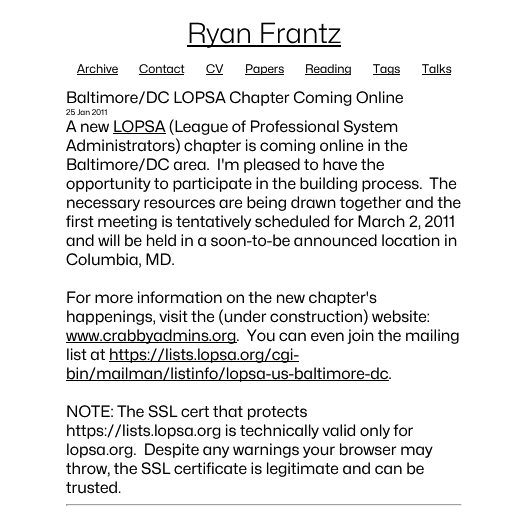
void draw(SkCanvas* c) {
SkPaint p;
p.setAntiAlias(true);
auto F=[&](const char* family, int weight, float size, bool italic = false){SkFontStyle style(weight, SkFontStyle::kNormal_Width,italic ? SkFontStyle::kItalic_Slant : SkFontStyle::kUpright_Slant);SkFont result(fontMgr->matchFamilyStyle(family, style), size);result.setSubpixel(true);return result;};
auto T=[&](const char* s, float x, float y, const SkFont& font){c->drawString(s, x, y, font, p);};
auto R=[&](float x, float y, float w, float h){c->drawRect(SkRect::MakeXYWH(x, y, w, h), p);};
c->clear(0xffffffff);
p.setColor(0xff000000);
R(187,45,154,2);
auto f1 = F("Mona Sans",300,27.75);
T("Ryan Frantz",187,43,f1);
auto f2 = F("Mona Sans",400,12);
T("Archive",77,73,f2);
R(77,74,41,1);
T("Contact",139,73,f2);
R(139,74,45,1);
T("CV",206,73,f2);
R(206,74,17,1);
R(245,74,39,1);
T("Papers",245,73,f2);
R(305,74,46,1);
T("Reading",305,73,f2);
R(373,74,27,1);
T("Tags",373,73,f2);
T("Talks",422,73,f2);
R(422,74,29,1);
auto f3 = F("Mona Sans",400,15.8);
T("Baltimore/DC LOPSA Chapter Coming Online",66,103,f3);
auto f4 = F("Mona Sans",400,8);
T("25 Jan 2011",66,115,f4);
T("A new LOPSA (League of Professional System",66,132,f3);
R(113,133,53,1);
T("Administrators) chapter is coming online in the",66,151,f3);
T("Baltimore/DC area.  I'm pleased to have the",66,170,f3);
T("opportunity to participate in the building process.  The",66,189,f3);
T("necessary resources are being drawn together and the",66,208,f3);
T("first meeting is tentatively scheduled for March 2, 2011",66,227,f3);
T("and will be held in a soon-to-be announced location in",66,246,f3);
T("Columbia, MD.",66,265,f3);
T("For more information on the new chapter's",66,303,f3);
T("happenings, visit the (under construction) website:",66,322,f3);
R(66,342,171,1);
T("www.crabbyadmins.org.  You can even join the mailing",66,341,f3);
T("list at",66,360,f3);
R(109,361,190,1);
T("https://lists.lopsa.org/cgi-",109,360,f3);
R(66,380,323,1);
T("bin/mailman/listinfo/lopsa-us-baltimore-dc.",66,379,f3);
T("NOTE: The SSL cert that protects",66,417,f3);
T("https://lists.lopsa.org is technically valid only for",66,436,f3);
T("lopsa.org.  Despite any warnings your browser may",66,455,f3);
T("throw, the SSL certificate is legitimate and can be",66,474,f3);
T("trusted.",66,493,f3);
p.setColor(0xff9f9f9f);
R(66,504,396,1);
p.setColor(0xffeeeeee);
R(461,504,1,2);
R(66,505,396,1);
p.setColor(0xff9f9f9f);
R(66,504,1,2);
}
